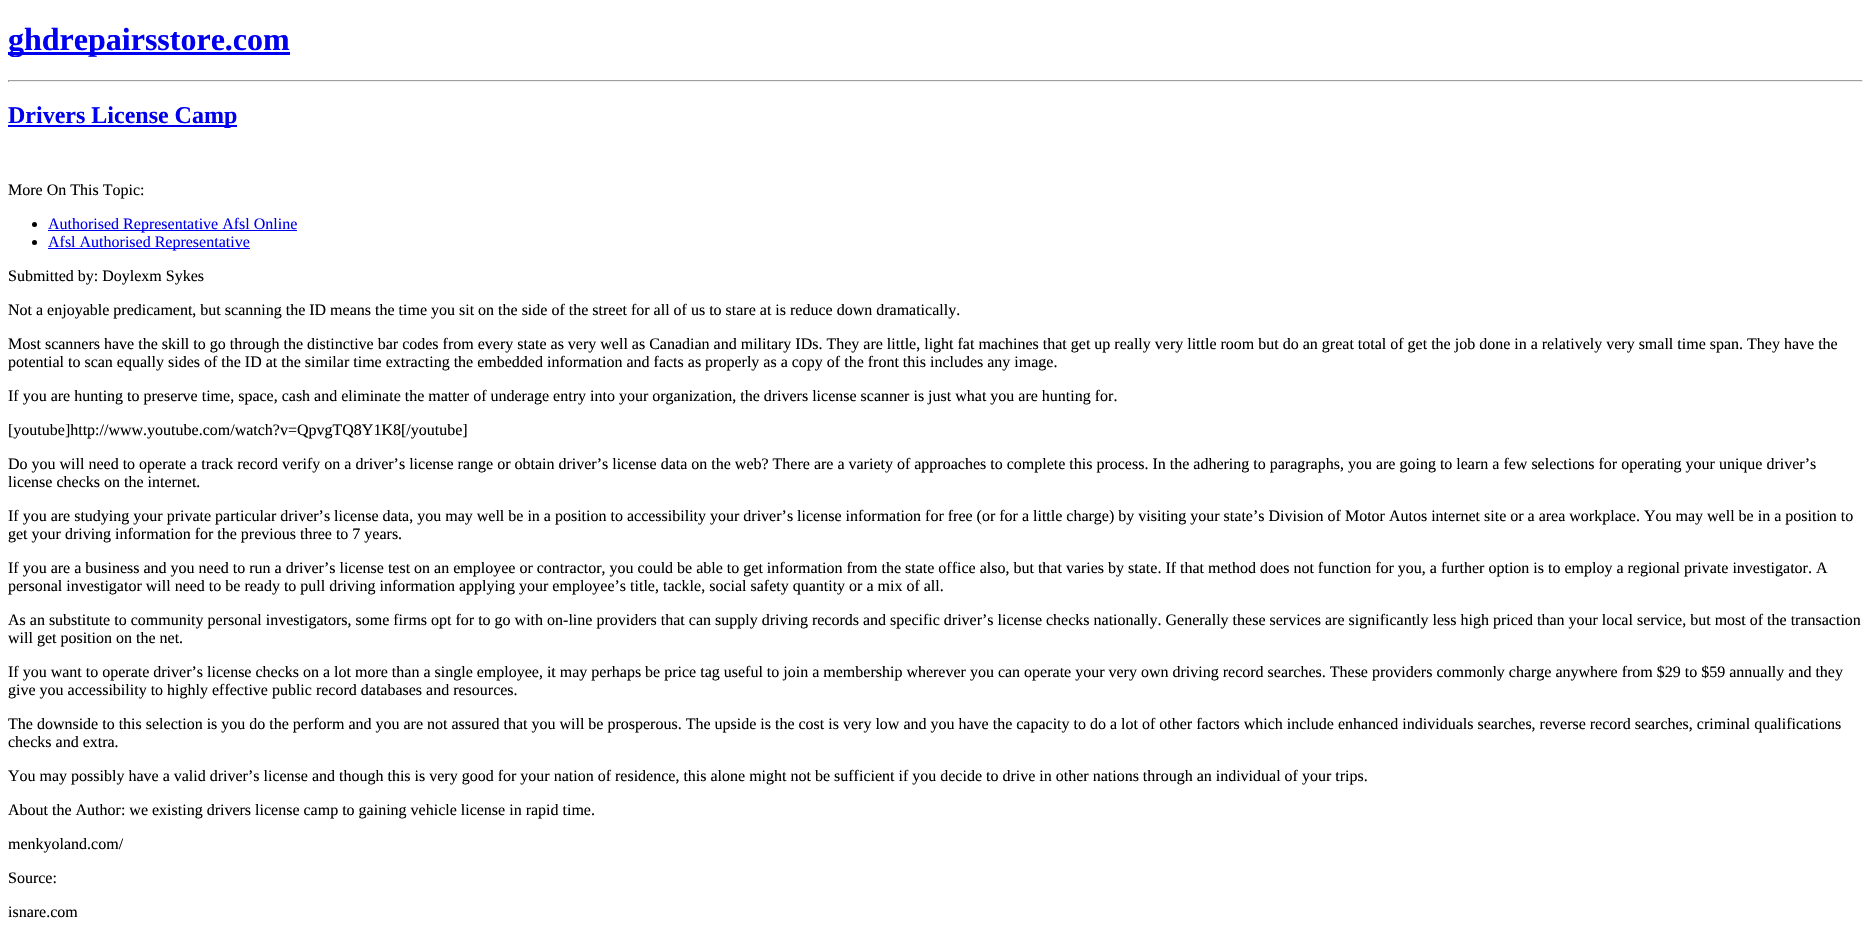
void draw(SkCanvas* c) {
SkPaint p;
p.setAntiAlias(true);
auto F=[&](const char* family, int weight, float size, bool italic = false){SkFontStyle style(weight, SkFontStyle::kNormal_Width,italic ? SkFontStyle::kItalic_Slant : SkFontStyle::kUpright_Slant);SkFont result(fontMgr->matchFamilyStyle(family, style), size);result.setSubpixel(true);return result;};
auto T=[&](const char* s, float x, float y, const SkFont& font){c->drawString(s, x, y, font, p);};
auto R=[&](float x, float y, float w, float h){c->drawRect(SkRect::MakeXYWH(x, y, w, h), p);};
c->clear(0xffffffff);
p.setColor(0xff0000ee);
R(8,52,282,3);
auto f1 = F("Liberation Serif",700,32);
T("ghdrepairsstore.com",8,50,f1);
p.setColor(0xff9f9f9f);
R(8,80,1855,1);
p.setColor(0xffeeeeee);
R(1862,80,1,2);
R(8,81,1855,1);
p.setColor(0xff9f9f9f);
R(8,80,1,2);
p.setColor(0xff0000ee);
R(8,125,229,2);
auto f2 = F("Liberation Serif",700,24);
T("Drivers License Camp",8,123,f2);
auto f3 = F("Liberation Serif",400,16);
p.setColor(0xff000000);
T("More On This Topic:",8,195,f3);
c->drawCircle(34.5,224.5,2.5,p);
p.setColor(0xff0000ee);
R(48,230,249,1);
T("Authorised Representative Afsl Online",48,229,f3);
p.setColor(0xff000000);
c->drawCircle(34.5,242.5,2.5,p);
p.setColor(0xff0000ee);
R(48,248,202,1);
T("Afsl Authorised Representative",48,247,f3);
p.setColor(0xff000000);
T("Submitted by: Doylexm Sykes",8,281,f3);
T("Not a enjoyable predicament, but scanning the ID means the time you sit on the side of the street for all of us to stare at is reduce down dramatically.",8,315,f3);
T("Most scanners have the skill to go through the distinctive bar codes from every state as very well as Canadian and military IDs. They are little, light fat machines that get up really very little room but do an great total of get the job done in a relatively very small time span. They have the",8,349,f3);
T("potential to scan equally sides of the ID at the similar time extracting the embedded information and facts as properly as a copy of the front this includes any image.",8,367,f3);
T("If you are hunting to preserve time, space, cash and eliminate the matter of underage entry into your organization, the drivers license scanner is just what you are hunting for.",8,401,f3);
T("[youtube]http://www.youtube.com/watch?v=QpvgTQ8Y1K8[/youtube]",8,435,f3);
T("Do you will need to operate a track record verify on a driver’s license range or obtain driver’s license data on the web? There are a variety of approaches to complete this process. In the adhering to paragraphs, you are going to learn a few selections for operating your unique driver’s",8,469,f3);
T("license checks on the internet.",8,487,f3);
T("If you are studying your private particular driver’s license data, you may well be in a position to accessibility your driver’s license information for free (or for a little charge) by visiting your state’s Division of Motor Autos internet site or a area workplace. You may well be in a position to",8,521,f3);
T("get your driving information for the previous three to 7 years.",8,539,f3);
T("If you are a business and you need to run a driver’s license test on an employee or contractor, you could be able to get information from the state office also, but that varies by state. If that method does not function for you, a further option is to employ a regional private investigator. A",8,573,f3);
T("personal investigator will need to be ready to pull driving information applying your employee’s title, tackle, social safety quantity or a mix of all.",8,591,f3);
T("As an substitute to community personal investigators, some firms opt for to go with on-line providers that can supply driving records and specific driver’s license checks nationally. Generally these services are significantly less high priced than your local service, but most of the transaction",8,625,f3);
T("will get position on the net.",8,643,f3);
T("If you want to operate driver’s license checks on a lot more than a single employee, it may perhaps be price tag useful to join a membership wherever you can operate your very own driving record searches. These providers commonly charge anywhere from $29 to $59 annually and they",8,677,f3);
T("give you accessibility to highly effective public record databases and resources.",8,695,f3);
T("The downside to this selection is you do the perform and you are not assured that you will be prosperous. The upside is the cost is very low and you have the capacity to do a lot of other factors which include enhanced individuals searches, reverse record searches, criminal qualifications",8,729,f3);
T("checks and extra.",8,747,f3);
T("You may possibly have a valid driver’s license and though this is very good for your nation of residence, this alone might not be sufficient if you decide to drive in other nations through an individual of your trips.",8,781,f3);
T("About the Author: we existing drivers license camp to gaining vehicle license in rapid time.",8,815,f3);
T("menkyoland.com/",8,849,f3);
T("Source:",8,883,f3);
T("isnare.com",8,917,f3);
}
